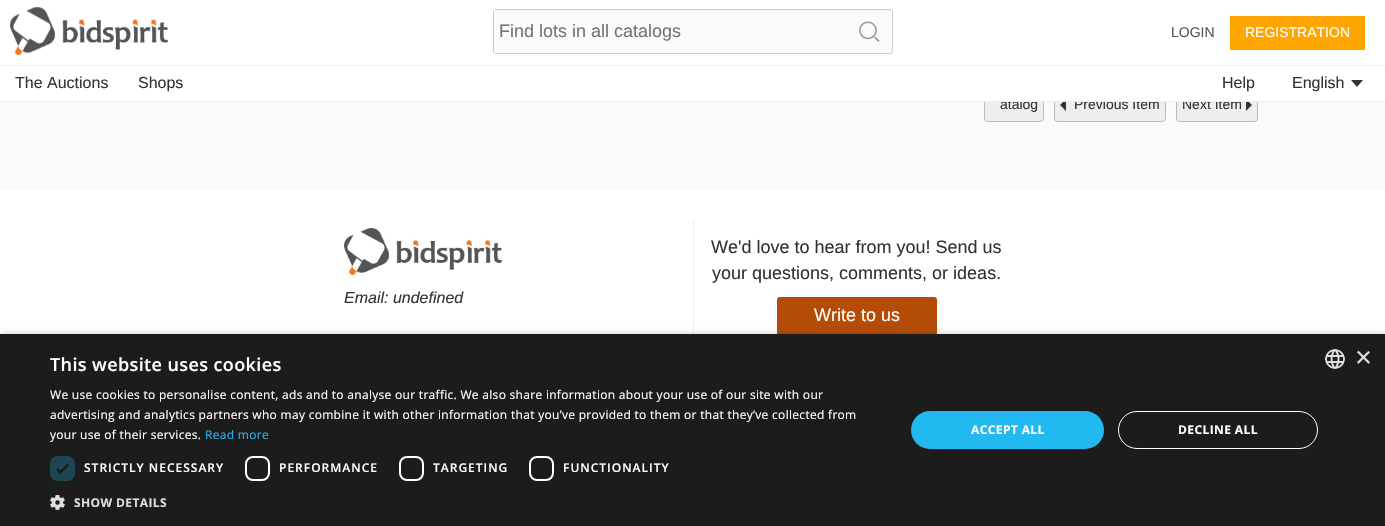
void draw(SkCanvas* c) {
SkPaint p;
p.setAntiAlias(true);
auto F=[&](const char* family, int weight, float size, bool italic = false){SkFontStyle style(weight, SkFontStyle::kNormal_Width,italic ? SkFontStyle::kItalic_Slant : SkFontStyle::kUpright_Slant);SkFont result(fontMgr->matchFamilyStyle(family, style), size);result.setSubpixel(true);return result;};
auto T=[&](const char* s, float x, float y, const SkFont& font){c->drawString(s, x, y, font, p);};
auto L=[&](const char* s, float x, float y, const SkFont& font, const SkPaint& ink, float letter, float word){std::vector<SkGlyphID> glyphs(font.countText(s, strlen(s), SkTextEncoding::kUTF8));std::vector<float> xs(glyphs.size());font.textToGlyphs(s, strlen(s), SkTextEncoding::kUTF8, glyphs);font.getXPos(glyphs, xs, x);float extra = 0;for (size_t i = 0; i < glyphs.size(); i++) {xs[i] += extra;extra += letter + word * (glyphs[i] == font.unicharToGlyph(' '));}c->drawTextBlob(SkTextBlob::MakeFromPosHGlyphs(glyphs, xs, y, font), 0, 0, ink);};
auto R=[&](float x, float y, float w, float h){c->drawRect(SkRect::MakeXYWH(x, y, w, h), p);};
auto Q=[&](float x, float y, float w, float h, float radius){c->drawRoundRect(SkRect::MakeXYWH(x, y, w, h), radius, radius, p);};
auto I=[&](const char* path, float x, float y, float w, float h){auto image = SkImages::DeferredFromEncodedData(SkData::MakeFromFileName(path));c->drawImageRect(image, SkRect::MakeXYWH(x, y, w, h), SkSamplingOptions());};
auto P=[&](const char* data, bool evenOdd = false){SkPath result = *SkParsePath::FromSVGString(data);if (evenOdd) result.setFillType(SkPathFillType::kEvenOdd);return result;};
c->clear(0xfffafafa);
p.setColor(0xffeeeeee);
c->drawRoundRect(SkRect::MakeXYWH(984.5,87.5,59,34),3.5,3.5,p);
p.setStroke(true);
p.setStrokeWidth(1);
p.setColor(0xffbbbbbb);
c->drawRoundRect(SkRect::MakeXYWH(984.5,87.5,59,34),3.5,3.5,p);
auto f1 = F("Liberation Sans",400,14);
p.setStroke(false);
p.setColor(0xff333333);
T("atalog",1000,109,f1);
p.setColor(0xffeeeeee);
c->drawRoundRect(SkRect::MakeXYWH(1054.5,87.5,111,34),3.5,3.5,p);
p.setStroke(true);
p.setColor(0xffbbbbbb);
c->drawRoundRect(SkRect::MakeXYWH(1054.5,87.5,111,34),3.5,3.5,p);
p.setStroke(false);
p.setColor(0xff333333);
c->drawPath(P("M1066 99v12l-6-6z"),p);
T("Previous Item",1074,109,f1);
p.setColor(0xffeeeeee);
c->drawRoundRect(SkRect::MakeXYWH(1176.5,87.5,81,34),3.5,3.5,p);
p.setStroke(true);
p.setColor(0xffbbbbbb);
c->drawRoundRect(SkRect::MakeXYWH(1176.5,87.5,81,34),3.5,3.5,p);
p.setStroke(false);
p.setColor(0xff333333);
T("Next Item",1182,109,f1);
c->drawPath(P("M1246 111v-12l6 6z"),p);
p.setColor(0xffffffff);
R(0,0,1385,101);
p.setColor(0xffeeeeee);
R(0,101,1385,1);
p.setColor(0xfffafafa);
c->drawRoundRect(SkRect::MakeXYWH(493.5,9.5,399,44),2.5,2.5,p);
p.setStroke(true);
p.setColor(0xffcccccc);
c->drawRoundRect(SkRect::MakeXYWH(493.5,9.5,399,44),2.5,2.5,p);
p.setStroke(false);
p.setColor(0xfffafafa);
R(494,10,2,43);
auto f2 = F("Liberation Sans",400,18);
p.setColor(0xff757575);
T("Find lots in all catalogs",499,37,f2);
I("1.png",859,21,21,21);
p.setColor(0xffeeeeee);
R(0,65,1385,1);
I("2.png",10,7,158,49);
p.setColor(0xff555555);
T("LOGIN",1171,37,f1);
p.setColor(0xffffa500);
R(1230,16,135,34);
p.setColor(0xffffffff);
T("REGISTRATION",1245,37,f1);
auto f3 = F("Liberation Sans",400,16);
p.setColor(0xff333333);
T("The Auctions",15,88,f3);
T("Shops",138,88,f3);
T("Help",1222,88,f3);
T("English",1292,88,f3);
c->drawPath(P("M1351 80h12l-6 7z"),p);
p.setColor(0xffffffff);
R(0,190,1385,144);
I("3.png",344,228,158,47);
auto f4 = F("Liberation Sans",400,16,true);
p.setColor(0xff333333);
T("Email: undefined",344,303,f4);
p.setColor(0xffeeeeee);
R(693,220,1,114);
p.setColor(0xff333333);
T("We'd love to hear from you! Send us",711,253,f2);
T("your questions, comments, or ideas.",712,279,f2);
p.setColor(0xffb44b07);
Q(777,297,160,40,3);
p.setColor(0xffffffff);
T("Write to us",814,321,f2);
p.setColor(0x59000000);
p.setMaskFilter(SkMaskFilter::MakeBlur(kNormal_SkBlurStyle, 4));
c->drawRect(SkRect::MakeXYWH(1,336,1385,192),p);
p.setMaskFilter(nullptr);
p.setColor(0xff1c1c1c);
R(0,334,1385,192);
auto f5 = F("Open Sans",600,18);
p.setColor(0xffffffff);
L("This website uses cookies",50,371,f5,p,.4,0);
auto f6 = F("Open Sans",400,12);
L("We use cookies to personalise content, ads and to analyse our traffic. We also share information about your use of our site with our",50,399,f6,p,.3,0);
L("advertising and analytics partners who may combine it with other information that you’ve provided to them or that they’ve collected from",50,419,f6,p,.3,0);
L("your use of their services.",50,439,f6,p,.3,0);
p.setColor(0xff22b8f0);
L("Read more",205,439,f6,p,.3,0);
p.setColor(0xff1e4553);
Q(50,456,25,25,8);
p.setStroke(true);
p.setStrokeWidth(2.6);
p.setColor(0xff1c1c1c);
c->drawPath(P("M57 469l3.5 3.5l7.5-8"),p);
auto f7 = F("Open Sans",600,12);
p.setStroke(false);
p.setColor(0xffffffff);
L("STRICTLY NECESSARY",84,472,f7,p,1,0);
p.setStroke(true);
p.setStrokeWidth(2);
c->drawRoundRect(SkRect::MakeXYWH(246,457,23,23),7,7,p);
p.setStroke(false);
L("PERFORMANCE",279,472,f7,p,1,0);
p.setStroke(true);
c->drawRoundRect(SkRect::MakeXYWH(400,457,23,23),7,7,p);
p.setStroke(false);
L("TARGETING",433,472,f7,p,1,0);
p.setStroke(true);
c->drawRoundRect(SkRect::MakeXYWH(530,457,23,23),7,7,p);
p.setStroke(false);
L("FUNCTIONALITY",563,472,f7,p,1,0);
I("4.png",50,495,15,15);
auto f8 = F("Open Sans",700,12);
p.setColor(0xffdddddd);
L("SHOW DETAILS",74,507,f8,p,.4,0);
p.setColor(0xff22b8f0);
Q(911,411,193,38,19);
p.setColor(0xffffffff);
L("ACCEPT ALL",971,434,f8,p,.4,0);
p.setStroke(true);
p.setStrokeWidth(1);
c->drawRoundRect(SkRect::MakeXYWH(1118.5,411.5,199,37),18.5,18.5,p);
p.setStroke(false);
L("DECLINE ALL",1178,434,f8,p,.4,0);
I("5.png",1325,349,20,20);
auto f9 = F("Liberation Sans",400,29);
p.setColor(0xffdddddd);
T("×",1355,367,f9);
}
